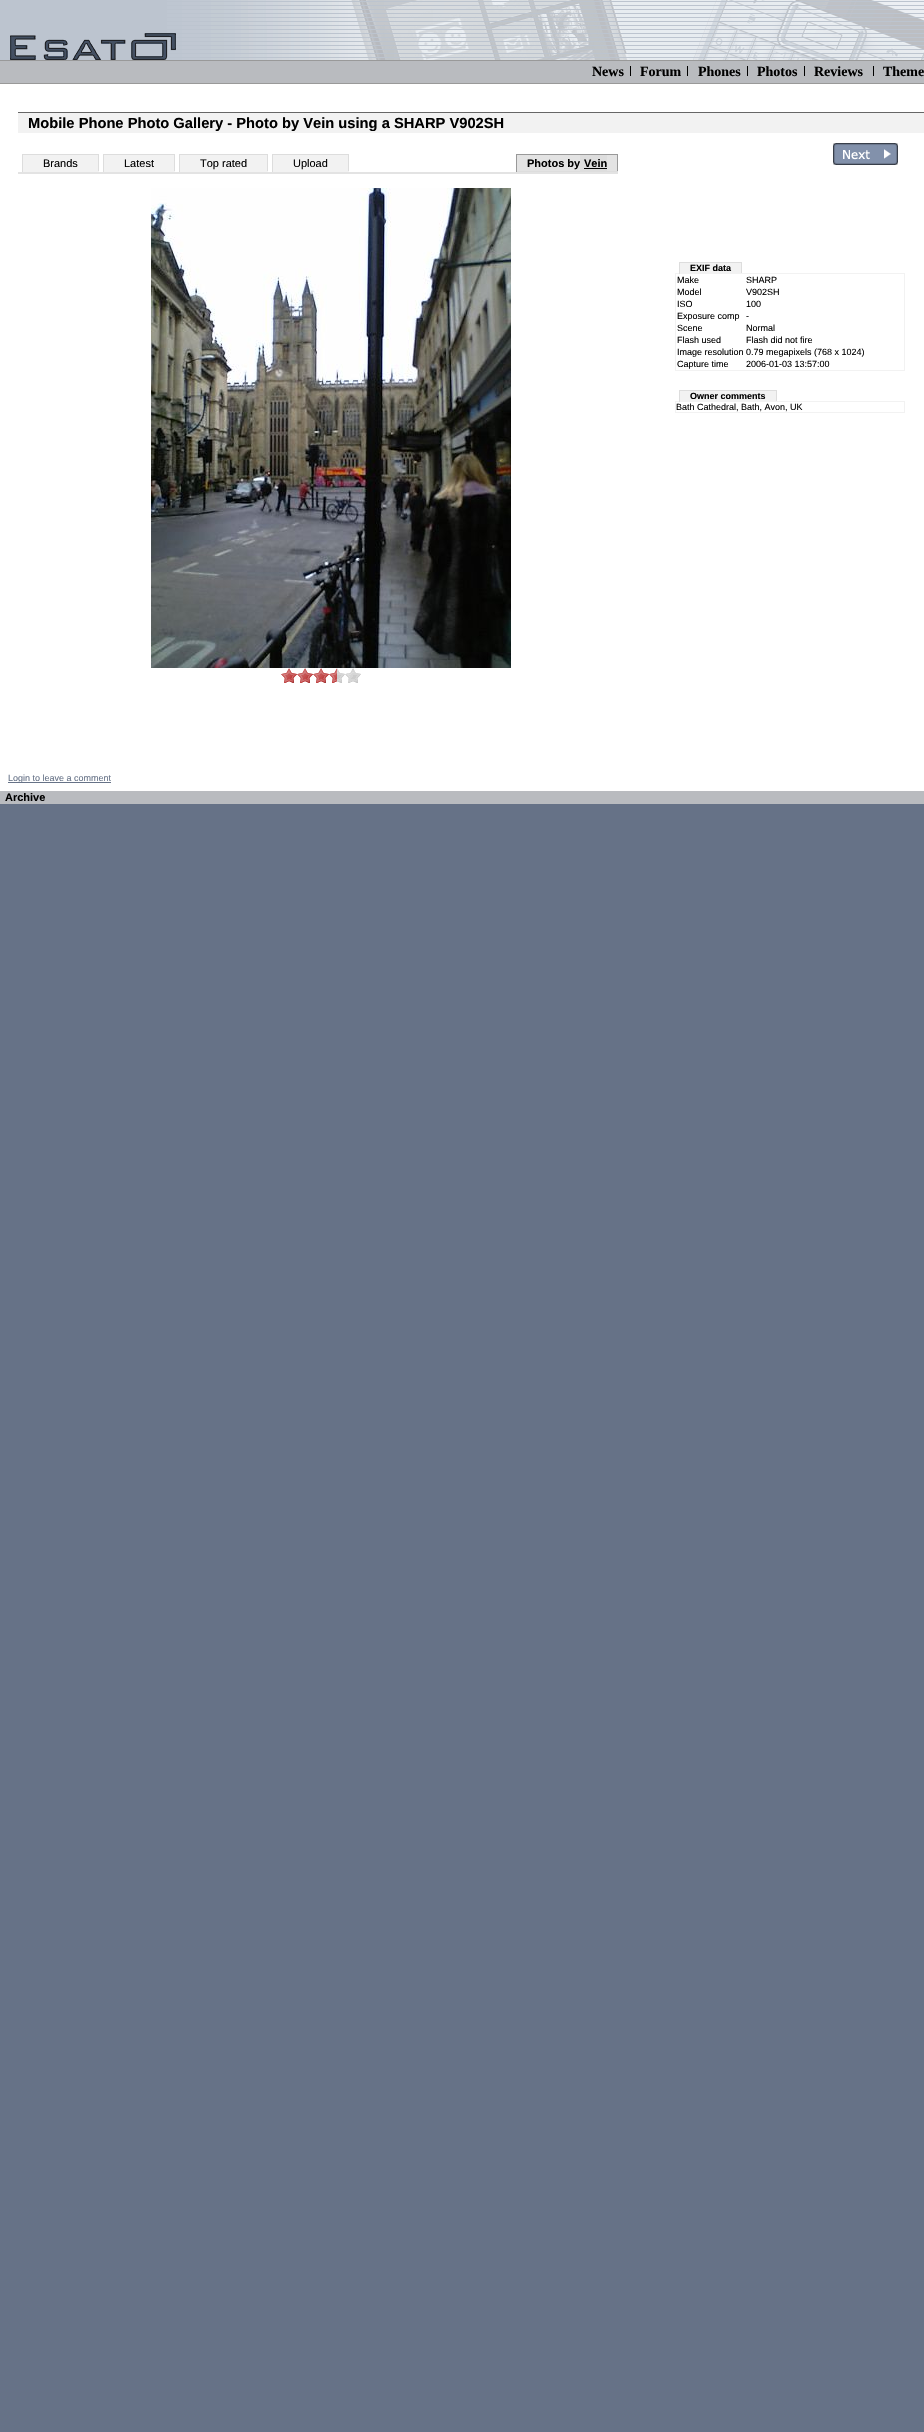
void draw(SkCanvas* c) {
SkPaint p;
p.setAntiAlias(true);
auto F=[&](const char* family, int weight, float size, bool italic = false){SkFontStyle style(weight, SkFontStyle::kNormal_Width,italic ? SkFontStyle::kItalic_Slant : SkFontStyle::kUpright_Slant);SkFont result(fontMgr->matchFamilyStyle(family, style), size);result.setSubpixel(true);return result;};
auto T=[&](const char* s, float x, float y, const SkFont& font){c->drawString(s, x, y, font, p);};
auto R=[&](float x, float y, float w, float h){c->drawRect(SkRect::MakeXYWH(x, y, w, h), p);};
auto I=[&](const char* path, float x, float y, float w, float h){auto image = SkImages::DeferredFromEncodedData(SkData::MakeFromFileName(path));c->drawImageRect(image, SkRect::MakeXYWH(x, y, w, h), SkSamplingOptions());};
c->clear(0xff667287);
I("1.png",0,0,924,60);
p.setColor(0xffb9bbbf);
R(0,61,924,22);
p.setColor(0xff999999);
R(0,60,924,1);
R(0,83,924,1);
auto f1 = F("Liberation Serif",700,14);
p.setColor(0xff000000);
T("News",592,76,f1);
R(630,66,1,10);
T("Forum",640,76,f1);
R(687,66,1,10);
T("Phones",698,76,f1);
R(747,66,1,10);
T("Photos",757,76,f1);
R(804,66,1,10);
T("Reviews",814,76,f1);
R(873,66,1,10);
T("Theme",883,76,f1);
p.setColor(0xffffffff);
R(0,84,924,707);
p.setColor(0xfff2f2f2);
R(18,113,906,20);
p.setColor(0xff666666);
R(18,112,906,1);
auto f2 = F("Liberation Sans",700,14.7);
p.setColor(0xff000000);
T("Mobile Phone Photo Gallery - Photo by Vein using a SHARP V902SH",28,128,f2);
p.setColor(0xffe3e3e3);
R(18,172,600,2);
p.setColor(0xfff2f2f2);
R(23,155,75,16);
p.setColor(0xffdddddd);
R(22,154,77,1);
R(98,154,1,18);
p.setColor(0xfff2f2f2);
R(22,171,77,1);
p.setColor(0xffdddddd);
R(22,154,1,18);
auto f3 = F("Liberation Sans",400,11);
p.setColor(0xff000000);
T("Brands",43,167,f3);
p.setColor(0xfff2f2f2);
R(104,155,70,16);
p.setColor(0xffdddddd);
R(103,154,72,1);
R(174,154,1,18);
p.setColor(0xfff2f2f2);
R(103,171,72,1);
p.setColor(0xffdddddd);
R(103,154,1,18);
p.setColor(0xff000000);
T("Latest",124,167,f3);
p.setColor(0xfff2f2f2);
R(180,155,87,16);
p.setColor(0xffdddddd);
R(179,154,89,1);
R(267,154,1,18);
p.setColor(0xfff2f2f2);
R(179,171,89,1);
p.setColor(0xffdddddd);
R(179,154,1,18);
p.setColor(0xff000000);
T("Top rated",200,167,f3);
p.setColor(0xfff2f2f2);
R(273,155,75,16);
p.setColor(0xffdddddd);
R(272,154,77,1);
R(348,154,1,18);
p.setColor(0xfff2f2f2);
R(272,171,77,1);
p.setColor(0xffdddddd);
R(272,154,1,18);
p.setColor(0xff000000);
T("Upload",293,167,f3);
p.setColor(0xffe3e3e3);
R(517,155,100,16);
p.setColor(0xff999999);
R(516,154,102,1);
R(617,154,1,18);
p.setColor(0xffdddddd);
R(516,171,102,1);
p.setColor(0xff999999);
R(516,154,1,18);
auto f4 = F("Liberation Sans",700,11);
p.setColor(0xff000000);
T("Photos by",527,167,f4);
p.setColor(0xffdddddd);
R(580,155,27,16);
p.setColor(0xff000000);
T("Vein",584,167,f4);
R(584,168,23,1);
I("2.png",833,143,65,22);
I("3.png",151,188,360,480);
I("4.png",281,668,8,15);
I("5.png",289,668,8,15);
I("4.png",297,668,8,15);
I("5.png",305,668,8,15);
I("4.png",313,668,8,15);
I("5.png",321,668,8,15);
I("4.png",329,668,8,15);
I("6.png",337,668,8,15);
I("7.png",345,668,8,15);
I("6.png",353,668,8,15);
p.setColor(0xfff2f2f2);
R(680,263,61,10);
auto f5 = F("Liberation Sans",700,9);
p.setColor(0xff000000);
T("EXIF data",690,271,f5);
p.setColor(0xffdddddd);
R(679,262,63,1);
p.setStroke(true);
p.setStrokeWidth(1);
p.setColor(0xfff2f2f2);
c->drawRect(SkRect::MakeXYWH(675.5,273.5,229,97),p);
p.setStroke(false);
p.setColor(0xffdddddd);
R(741,262,1,12);
p.setColor(0xfff2f2f2);
R(741,273,1,1);
p.setColor(0xffdddddd);
R(679,262,1,12);
auto f6 = F("Liberation Sans",400,9);
p.setColor(0xff000000);
T("Make",677,283,f6);
T("SHARP",746,283,f6);
T("Model",677,295,f6);
T("V902SH",746,295,f6);
T("ISO",677,307,f6);
T("100",746,307,f6);
T("Exposure comp",677,319,f6);
T("-",746,319,f6);
T("Scene",677,331,f6);
T("Normal",746,331,f6);
T("Flash used",677,343,f6);
T("Flash did not fire",746,343,f6);
T("Image resolution",677,355,f6);
T("0.79 megapixels (768 x 1024)",746,355,f6);
T("Capture time",677,367,f6);
T("2006-01-03 13:57:00",746,367,f6);
p.setColor(0xfff2f2f2);
R(680,391,96,10);
p.setColor(0xff000000);
T("Owner comments",690,399,f5);
p.setColor(0xffdddddd);
R(679,390,98,1);
p.setStroke(true);
p.setColor(0xfff2f2f2);
c->drawRect(SkRect::MakeXYWH(675.5,401.5,229,11),p);
p.setStroke(false);
p.setColor(0xffdddddd);
R(776,390,1,12);
p.setColor(0xfff2f2f2);
R(776,401,1,1);
p.setColor(0xffdddddd);
R(679,390,1,12);
p.setColor(0xff000000);
T("Bath Cathedral, Bath, Avon, UK",676,410,f6);
p.setColor(0xff667287);
R(8,782,103,1);
T("Login to leave a comment",8,781,f6);
p.setColor(0xffb9bbbf);
R(0,791,924,13);
p.setColor(0xff000000);
T("Archive",5,801,f4);
}
